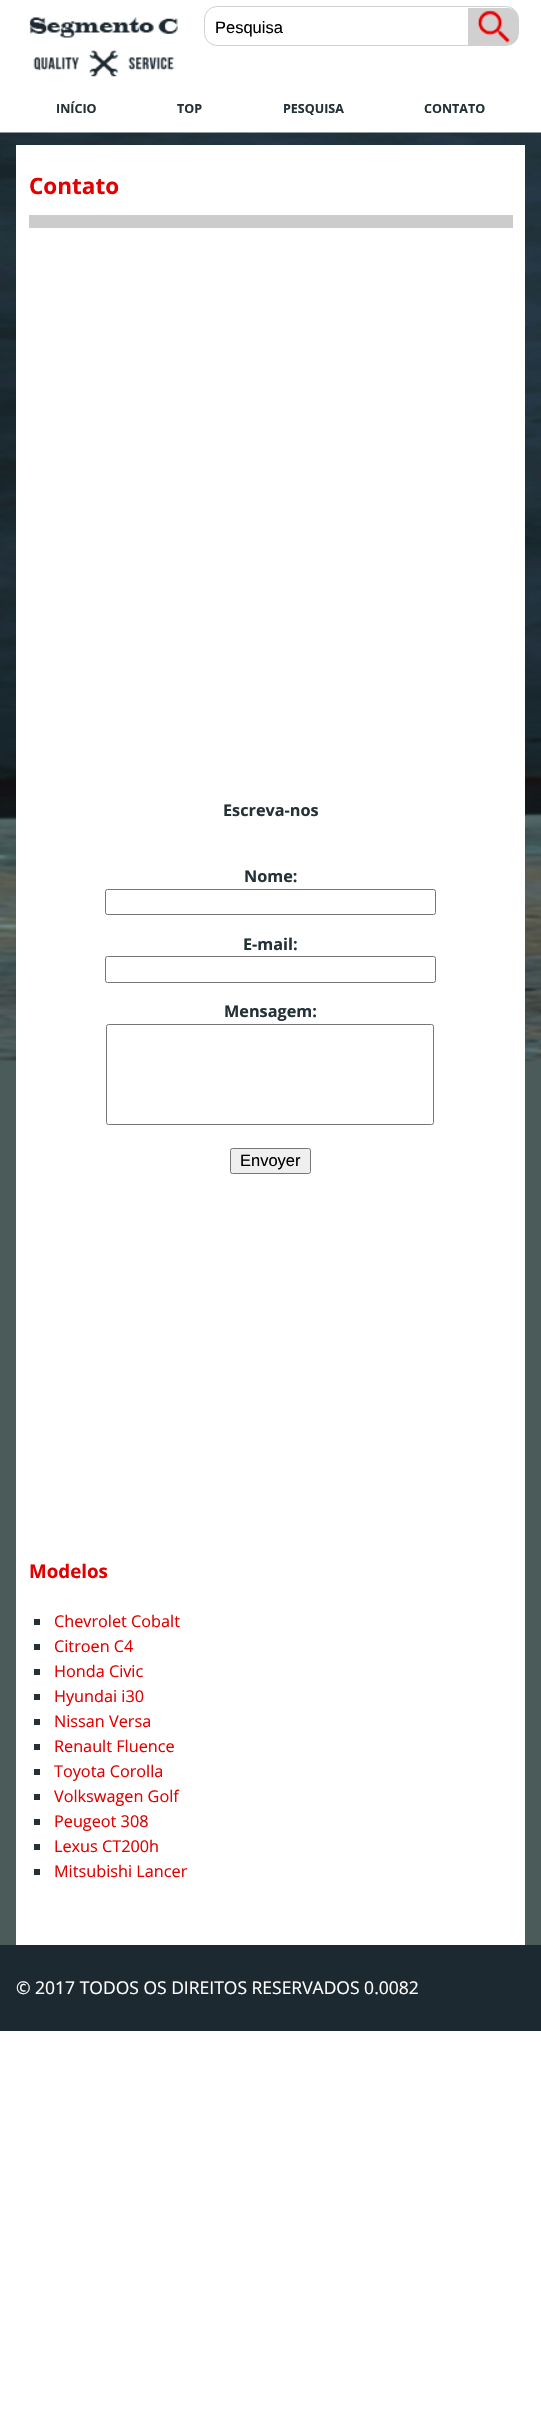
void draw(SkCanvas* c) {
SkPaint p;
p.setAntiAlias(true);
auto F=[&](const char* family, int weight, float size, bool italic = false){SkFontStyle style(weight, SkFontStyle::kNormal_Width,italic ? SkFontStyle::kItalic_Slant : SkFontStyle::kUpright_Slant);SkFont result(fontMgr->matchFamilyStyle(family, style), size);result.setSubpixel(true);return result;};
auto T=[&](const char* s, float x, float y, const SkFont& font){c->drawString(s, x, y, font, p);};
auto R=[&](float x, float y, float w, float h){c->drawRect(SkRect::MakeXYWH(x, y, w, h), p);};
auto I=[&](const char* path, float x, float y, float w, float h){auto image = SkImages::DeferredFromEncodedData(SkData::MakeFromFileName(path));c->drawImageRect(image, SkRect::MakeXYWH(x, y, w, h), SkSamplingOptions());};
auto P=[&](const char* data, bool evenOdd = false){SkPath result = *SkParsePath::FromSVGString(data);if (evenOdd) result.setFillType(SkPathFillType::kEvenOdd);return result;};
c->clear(0xffffffff);
I("1.png",29,17,149,60);
p.setStroke(true);
p.setStrokeWidth(1);
p.setColor(0xffd0d0d0);
c->drawRoundRect(SkRect::MakeXYWH(204.5,6.5,314,39),12.5,12.5,p);
auto f1 = F("Liberation Sans",400,16.5);
p.setStroke(false);
p.setColor(0xff000000);
T("Pesquisa",215,33,f1);
p.setColor(0xffd0d0d0);
c->drawPath(P("M468 8h40c5.5 0 10 4.5 10 10v17c0 5.5-4.5 10-10 10h-40z"),p);
I("2.png",477,10,34,33);
auto f2 = F("Open Sans",700,12.5);
p.setColor(0xff243238);
T("INÍCIO",56,113,f2);
T("TOP",177,113,f2);
T("PESQUISA",283,113,f2);
T("CONTATO",424,113,f2);
p.setColor(0xff4a5b5a);
R(0,1061,541,884);
I("3.png",0,132,541,930);
p.setColor(0xffffffff);
R(16,145,509,1800);
auto f3 = F("Open Sans",700,22.5);
p.setColor(0xffe30000);
T("Contato",29,194,f3);
p.setColor(0xffcccccc);
R(29,215,484,13);
auto f4 = F("Open Sans",700,16.25);
p.setColor(0xff243238);
T("Escreva-nos",223,816,f4);
T("Nome:",244,882,f4);
p.setStroke(true);
p.setColor(0xff767676);
c->drawRoundRect(SkRect::MakeXYWH(105.5,889.5,330,25),2,2,p);
p.setStroke(false);
p.setColor(0xff243238);
T("E-mail:",243,950,f4);
p.setStroke(true);
p.setColor(0xff767676);
c->drawRoundRect(SkRect::MakeXYWH(105.5,956.5,330,26),2,2,p);
p.setStroke(false);
p.setColor(0xff243238);
T("Mensagem:",224,1017,f4);
p.setStroke(true);
p.setColor(0xff767676);
c->drawRoundRect(SkRect::MakeXYWH(106.5,1024.5,327,100),2,2,p);
p.setStroke(false);
p.setColor(0xffefefef);
c->drawRoundRect(SkRect::MakeXYWH(230.5,1148.5,80,25),2,2,p);
p.setStroke(true);
p.setColor(0xff767676);
c->drawRoundRect(SkRect::MakeXYWH(230.5,1148.5,80,25),2,2,p);
p.setStroke(false);
p.setColor(0xff000000);
T("Envoyer",240,1166,f1);
auto f5 = F("Open Sans",700,18.75);
p.setColor(0xffe30000);
T("Modelos",29,1578,f5);
p.setColor(0xff243238);
R(34,1619,6,6);
auto f6 = F("Open Sans",400,16.25);
p.setColor(0xffe30000);
T("Chevrolet Cobalt",54,1627,f6);
p.setColor(0xff243238);
R(34,1644,6,6);
p.setColor(0xffe30000);
T("Citroen C4",54,1652,f6);
p.setColor(0xff243238);
R(34,1669,6,6);
p.setColor(0xffe30000);
T("Honda Civic",54,1677,f6);
p.setColor(0xff243238);
R(34,1694,6,6);
p.setColor(0xffe30000);
T("Hyundai i30",54,1702,f6);
p.setColor(0xff243238);
R(34,1719,6,6);
p.setColor(0xffe30000);
T("Nissan Versa",54,1727,f6);
p.setColor(0xff243238);
R(34,1744,6,6);
p.setColor(0xffe30000);
T("Renault Fluence",54,1752,f6);
p.setColor(0xff243238);
R(34,1769,6,6);
p.setColor(0xffe30000);
T("Toyota Corolla",54,1777,f6);
p.setColor(0xff243238);
R(34,1794,6,6);
p.setColor(0xffe30000);
T("Volkswagen Golf",54,1802,f6);
p.setColor(0xff243238);
R(34,1819,6,6);
p.setColor(0xffe30000);
T("Peugeot 308",54,1827,f6);
p.setColor(0xff243238);
R(34,1844,6,6);
p.setColor(0xffe30000);
T("Lexus CT200h",54,1852,f6);
p.setColor(0xff243238);
R(34,1869,6,6);
p.setColor(0xffe30000);
T("Mitsubishi Lancer",54,1877,f6);
p.setColor(0xff1c2931);
R(0,1945,541,86);
auto f7 = F("Open Sans",400,17.5);
p.setColor(0xffffffff);
T("© 2017 TODOS OS DIREITOS RESERVADOS 0.0082",16,1994,f7);
}
